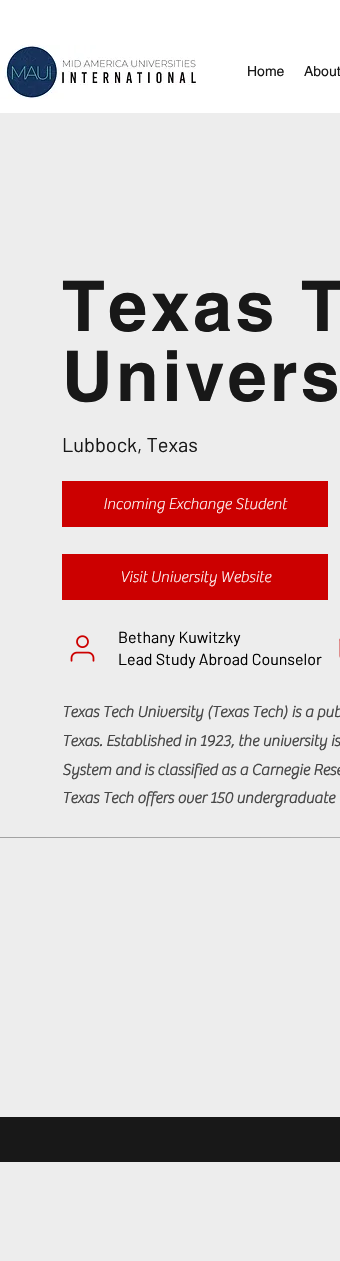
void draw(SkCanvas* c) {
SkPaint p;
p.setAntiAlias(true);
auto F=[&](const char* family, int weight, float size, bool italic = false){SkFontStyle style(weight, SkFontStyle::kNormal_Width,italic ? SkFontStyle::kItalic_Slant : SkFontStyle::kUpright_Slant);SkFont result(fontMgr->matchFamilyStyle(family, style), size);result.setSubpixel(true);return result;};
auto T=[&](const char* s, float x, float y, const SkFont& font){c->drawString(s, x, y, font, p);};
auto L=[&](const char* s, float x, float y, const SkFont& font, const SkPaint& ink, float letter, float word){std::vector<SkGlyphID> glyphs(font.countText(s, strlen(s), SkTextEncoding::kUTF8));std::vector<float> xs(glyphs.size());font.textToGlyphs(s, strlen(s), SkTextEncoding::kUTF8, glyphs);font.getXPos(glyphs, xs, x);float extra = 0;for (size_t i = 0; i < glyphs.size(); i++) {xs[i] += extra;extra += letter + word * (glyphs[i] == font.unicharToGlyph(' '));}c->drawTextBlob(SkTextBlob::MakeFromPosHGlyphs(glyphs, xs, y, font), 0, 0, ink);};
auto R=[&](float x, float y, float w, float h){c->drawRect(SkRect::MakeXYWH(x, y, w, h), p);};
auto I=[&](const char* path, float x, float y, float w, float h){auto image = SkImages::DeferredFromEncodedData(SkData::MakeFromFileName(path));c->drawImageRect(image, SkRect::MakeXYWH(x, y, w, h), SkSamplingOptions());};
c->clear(0xffededed);
p.setColor(0xffffffff);
R(0,0,340,113);
I("1.png",0,45,196,54);
auto f1 = F("helvetica",400,14);
p.setColor(0xff181818);
T("Home",247,76,f1);
T("About",304,76,f1);
auto f2 = F("helvetica",700,70);
L("Texas T",62,331,f2,p,3.5,0);
L("Univers",62,401,f2,p,3.5,0);
auto f3 = F("Barlow",400,20);
T("Lubbock, Texas",62,452,f3);
p.setColor(0xffcc0000);
R(62,481,266,46);
auto f4 = F("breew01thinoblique",100,16);
p.setColor(0xfffffffe);
T("Incoming Exchange Student",103,509,f4);
p.setColor(0xffcc0000);
R(62,554,266,46);
p.setColor(0xfffffffe);
T("Visit University Website",120,582,f4);
I("2.png",70,635,25,27);
auto f5 = F("Barlow",400,16);
p.setColor(0xff000000);
T("Bethany Kuwitzky",118,643,f5);
T("Lead Study Abroad Counselor",118,665,f5);
I("3.png",339,638,1,20);
auto f6 = F("breew01thinoblique",700,16);
p.setColor(0xff474747);
T("Texas Tech University (Texas Tech) is a pub",62,717,f6);
T("Texas. Established in 1923, the university is",62,746,f6);
T("System and is classified as a Carnegie Rese",62,775,f6);
T("Texas Tech offers over 150 undergraduate",62,803,f6);
{
const SkColor colors[] = {0xffa2a2a2,0xffc2c2c2};
const float stops[] = {0,1};
const SkPoint ends[] = {{0,476}, {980,475}};
p.setShader(SkGradientShader::MakeLinear(ends, colors, stops, 2, SkTileMode::kClamp));
p.setAlpha(255);
}
R(0,837,340,1);
p.setShader(nullptr);
p.setColor(0xff181818);
R(0,1117,340,45);
}
